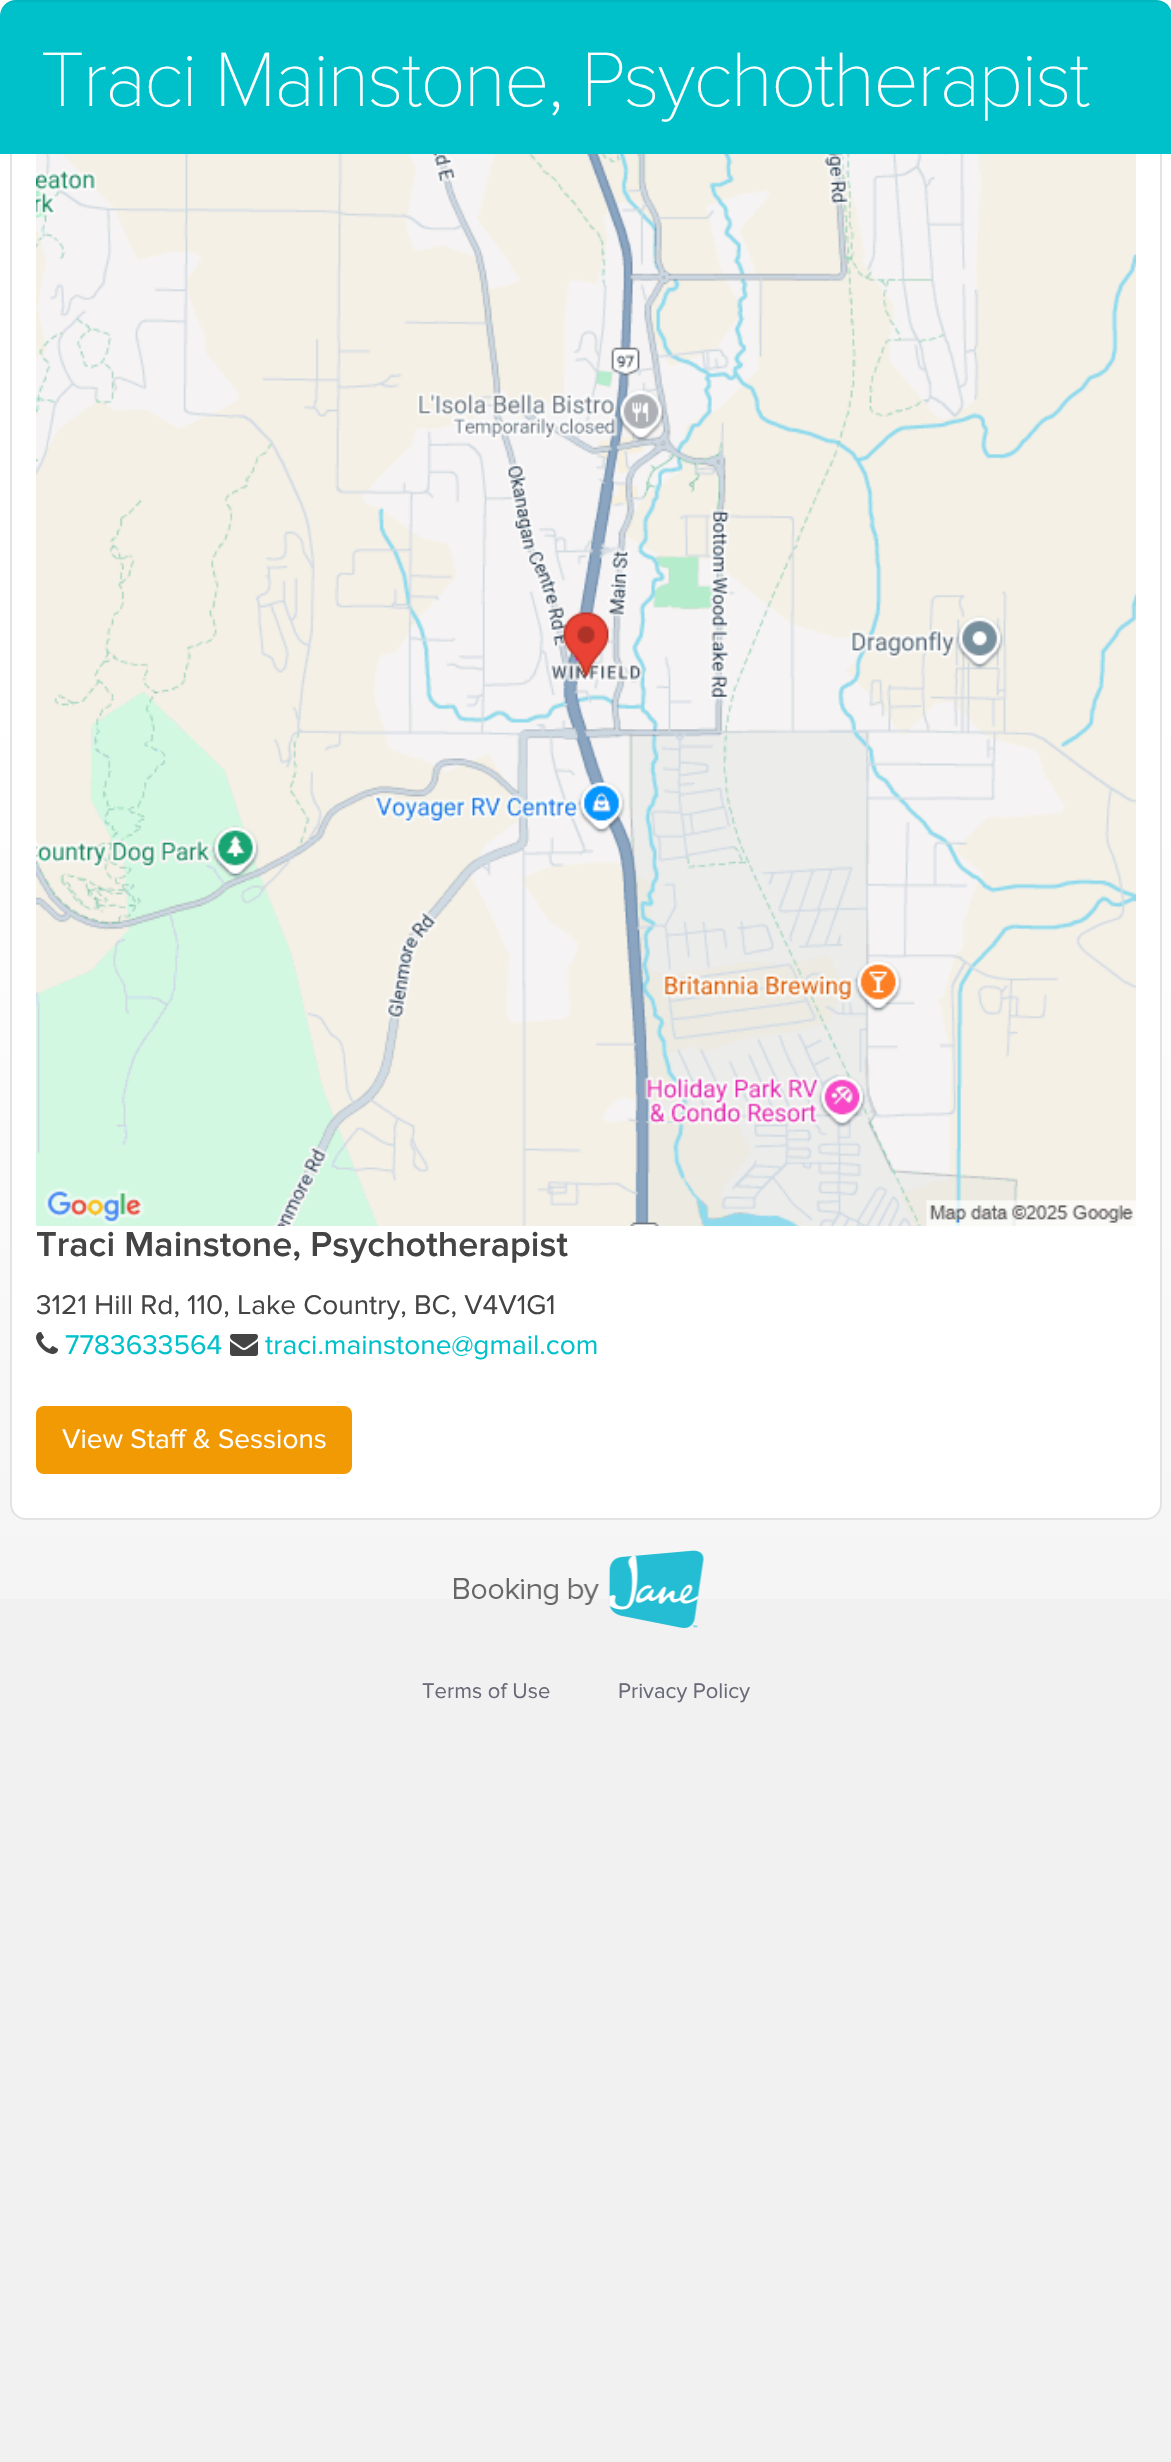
void draw(SkCanvas* c) {
SkPaint p;
p.setAntiAlias(true);
auto F=[&](const char* family, int weight, float size, bool italic = false){SkFontStyle style(weight, SkFontStyle::kNormal_Width,italic ? SkFontStyle::kItalic_Slant : SkFontStyle::kUpright_Slant);SkFont result(fontMgr->matchFamilyStyle(family, style), size);result.setSubpixel(true);return result;};
auto T=[&](const char* s, float x, float y, const SkFont& font){c->drawString(s, x, y, font, p);};
auto L=[&](const char* s, float x, float y, const SkFont& font, const SkPaint& ink, float letter, float word){std::vector<SkGlyphID> glyphs(font.countText(s, strlen(s), SkTextEncoding::kUTF8));std::vector<float> xs(glyphs.size());font.textToGlyphs(s, strlen(s), SkTextEncoding::kUTF8, glyphs);font.getXPos(glyphs, xs, x);float extra = 0;for (size_t i = 0; i < glyphs.size(); i++) {xs[i] += extra;extra += letter + word * (glyphs[i] == font.unicharToGlyph(' '));}c->drawTextBlob(SkTextBlob::MakeFromPosHGlyphs(glyphs, xs, y, font), 0, 0, ink);};
auto Q=[&](float x, float y, float w, float h, float radius){c->drawRoundRect(SkRect::MakeXYWH(x, y, w, h), radius, radius, p);};
auto I=[&](const char* path, float x, float y, float w, float h){auto image = SkImages::DeferredFromEncodedData(SkData::MakeFromFileName(path));c->drawImageRect(image, SkRect::MakeXYWH(x, y, w, h), SkSamplingOptions());};
auto P=[&](const char* data, bool evenOdd = false){SkPath result = *SkParsePath::FromSVGString(data);if (evenOdd) result.setFillType(SkPathFillType::kEvenOdd);return result;};
c->clear(0xfff1f1f2);
I("1.png",0,0,1171,1599);
p.setColor(0xffffffff);
c->drawRoundRect(SkRect::MakeXYWH(11,101,1150,1418),15,15,p);
p.setStroke(true);
p.setStrokeWidth(2);
p.setColor(0xffe3e3e3);
c->drawRoundRect(SkRect::MakeXYWH(11,101,1150,1418),15,15,p);
p.setStroke(false);
p.setColor(0xff00c1ca);
c->drawPath(P("M16 0h1140c9 0 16 7 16 16v138h-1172v-138c0-9 7-16 16-16z"),p);
p.setColor(0x0d000000);
c->drawPath(P("M16 2h1140c9 0 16 7 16 16c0-10-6-18-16-18h-1140c-10 0-16 8-16 18c0-9 7-16 16-16z"),p);
auto f1 = F("Proxima Nova",100,80);
p.setColor(0xffffffff);
L("Traci Mainstone, Psychotherapist",40,106,f1,p,-2,0);
I("2.png",36,154,1100,1072);
auto f2 = F("Proxima Nova",600,36);
p.setColor(0xff444444);
T("Traci Mainstone, Psychotherapist",36,1256,f2);
auto f3 = F("Proxima Nova",400,28);
T("3121 Hill Rd, 110, Lake Country, BC, V4V1G1",36,1314,f3);
I("3.png",36,1332,22,22);
p.setColor(0xff00c1ca);
T("7783633564",65,1354,f3);
I("4.png",230,1334,28,22);
T("traci.mainstone@gmail.com",265,1354,f3);
p.setColor(0xfff19a04);
Q(36,1406,316,68,8);
p.setColor(0xffffffff);
T("View Staff & Sessions",62,1448,f3);
I("5.png",454,1550,250,78);
auto f4 = F("Proxima Nova",400,22);
p.setColor(0xff696977);
T("Terms of Use",422,1698,f4);
T("Privacy Policy",618,1698,f4);
}
